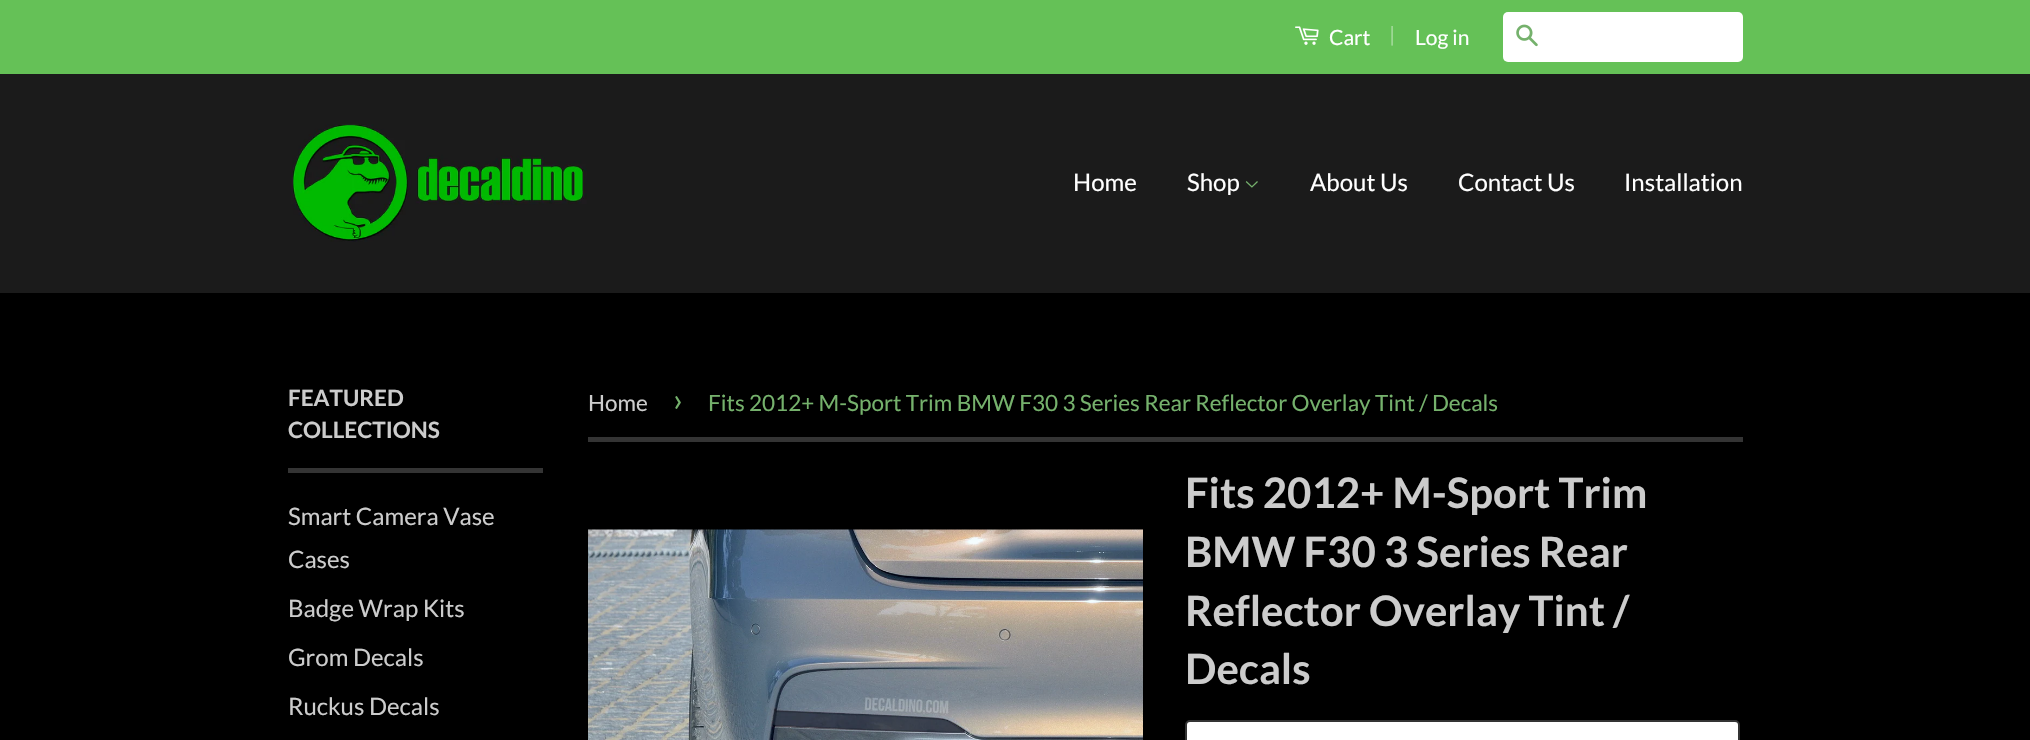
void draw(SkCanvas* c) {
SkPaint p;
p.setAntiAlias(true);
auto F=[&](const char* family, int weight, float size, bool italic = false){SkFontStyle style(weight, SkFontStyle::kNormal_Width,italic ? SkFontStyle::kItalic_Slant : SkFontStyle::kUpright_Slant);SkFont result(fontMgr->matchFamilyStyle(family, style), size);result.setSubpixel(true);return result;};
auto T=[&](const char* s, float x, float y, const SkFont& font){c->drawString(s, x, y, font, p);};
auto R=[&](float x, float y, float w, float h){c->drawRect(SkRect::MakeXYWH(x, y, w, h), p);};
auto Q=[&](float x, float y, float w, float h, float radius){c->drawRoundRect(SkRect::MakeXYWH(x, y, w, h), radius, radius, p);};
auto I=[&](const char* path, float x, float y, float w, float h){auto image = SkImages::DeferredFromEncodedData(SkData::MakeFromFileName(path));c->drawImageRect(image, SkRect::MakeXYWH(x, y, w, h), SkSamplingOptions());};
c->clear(0xff000000);
p.setColor(0xff65c157);
R(0,0,2030,74);
I("1.png",1295,26,24,19);
auto f1 = F("Lato",400,21);
p.setColor(0xffffffff);
T("Cart",1329,45,f1);
p.setColor(0xffa3da9a);
T("|",1389,42,f1);
p.setColor(0xffffffff);
T("Log in",1415,45,f1);
Q(1503,12,240,50,5);
I("2.png",1516,24,22,23);
p.setColor(0xff1b1b1b);
R(0,74,2030,219);
I("3.png",291,124,296,118);
auto f2 = F("Lato",400,24);
p.setColor(0xffffffff);
T("Home",1073,191,f2);
T("Shop",1187,191,f2);
I("4.png",1245,181,13,7);
T("About Us",1310,191,f2);
T("Contact Us",1458,191,f2);
T("Installation",1624,191,f2);
p.setColor(0xff343434);
R(288,468,255,5);
auto f3 = F("Lato",700,22.5);
p.setColor(0xffcccccc);
T("FEATURED",288,406,f3);
T("COLLECTIONS",288,438,f3);
T("Smart Camera Vase",288,525,f2);
T("Cases",288,568,f2);
T("Badge Wrap Kits",288,617,f2);
T("Grom Decals",288,666,f2);
T("Ruckus Decals",288,715,f2);
p.setColor(0xff343434);
R(588,437,1155,5);
auto f4 = F("Lato",400,22.5);
p.setColor(0xffcccccc);
T("Home",588,411,f4);
auto f5 = F("Lato",400,32);
p.setColor(0xff75b16c);
T("›",673,411,f5);
T("Fits 2012+ M-Sport Trim BMW F30 3 Series Rear Reflector Overlay Tint / Decals",708,411,f4);
I("5.png",588,529,555,211);
auto f6 = F("Lato",700,42);
p.setColor(0xffcccccc);
T("Fits 2012+ M-Sport Trim",1185,508,f6);
T("BMW F30 3 Series Rear",1185,567,f6);
T("Reflector Overlay Tint /",1185,626,f6);
T("Decals",1185,684,f6);
p.setColor(0xffffffff);
c->drawRoundRect(SkRect::MakeXYWH(1186,721,553,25),4,4,p);
p.setStroke(true);
p.setStrokeWidth(2);
p.setColor(0xff343434);
c->drawRoundRect(SkRect::MakeXYWH(1186,721,553,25),4,4,p);
}
